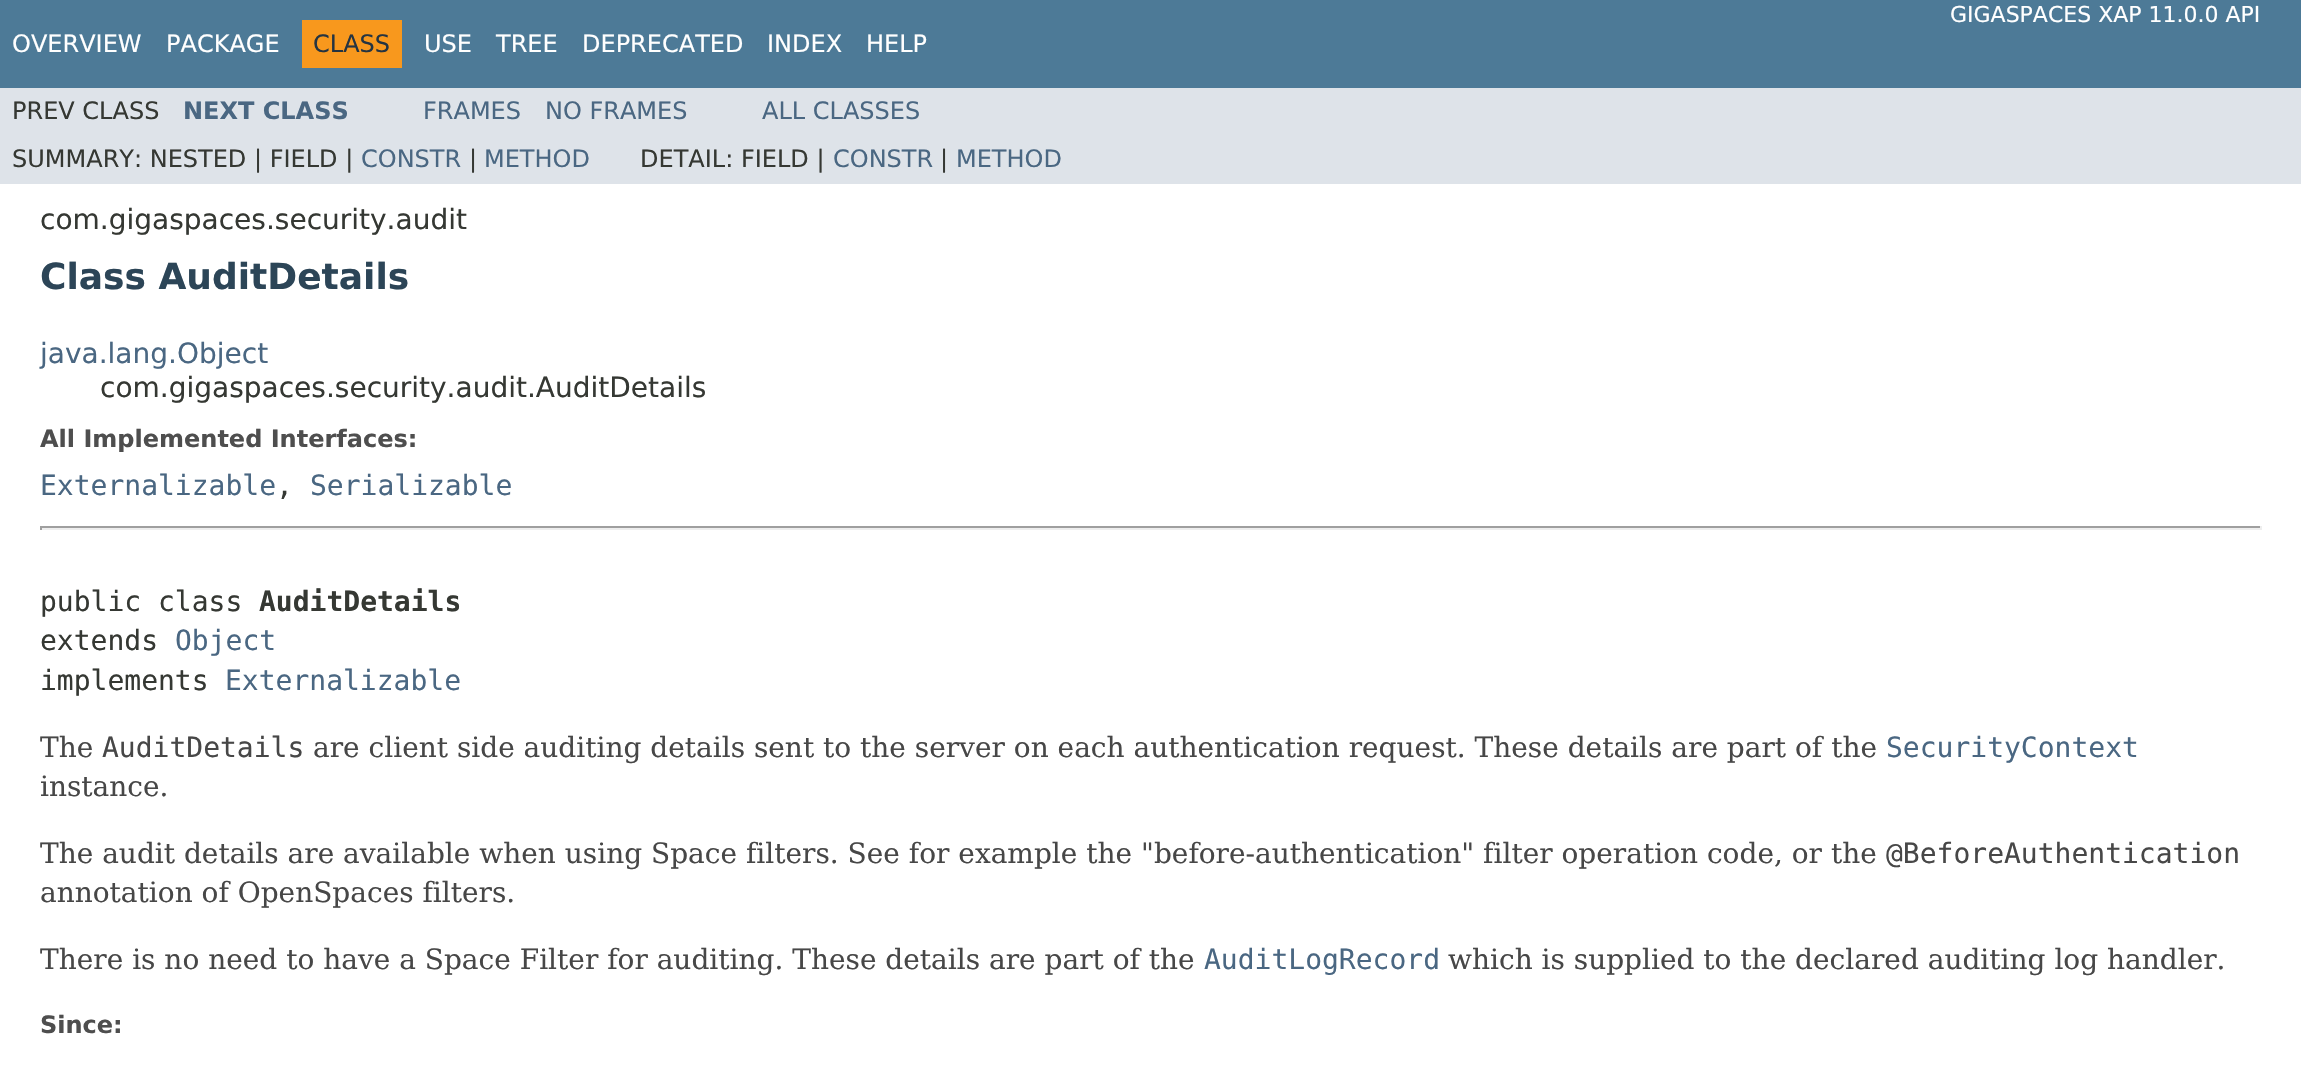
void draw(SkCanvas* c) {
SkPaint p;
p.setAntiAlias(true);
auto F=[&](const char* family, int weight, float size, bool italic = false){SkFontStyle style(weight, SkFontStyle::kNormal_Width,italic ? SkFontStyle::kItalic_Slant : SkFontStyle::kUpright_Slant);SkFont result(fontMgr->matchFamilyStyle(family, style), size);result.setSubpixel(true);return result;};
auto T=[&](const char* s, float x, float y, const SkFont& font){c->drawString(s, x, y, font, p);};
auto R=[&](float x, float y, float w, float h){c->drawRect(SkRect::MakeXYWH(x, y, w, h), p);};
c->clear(0xffffffff);
p.setColor(0xff4d7a97);
R(0,0,2301,88);
auto f1 = F("DejaVu Sans",400,22);
p.setColor(0xffffffff);
T("GIGASPACES XAP 11.0.0 API",1950,22,f1);
auto f2 = F("DejaVu Sans",400,24);
T("OVERVIEW",12,52,f2);
T("PACKAGE",166,52,f2);
p.setColor(0xfff8981d);
R(302,20,100,48);
p.setColor(0xff253441);
T("CLASS",313,52,f2);
p.setColor(0xffffffff);
T("USE",424,52,f2);
T("TREE",496,52,f2);
T("DEPRECATED",582,52,f2);
T("INDEX",767,52,f2);
T("HELP",866,52,f2);
p.setColor(0xffdee3e9);
R(0,88,2301,96);
p.setColor(0xff353833);
T("PREV CLASS",12,119,f2);
auto f3 = F("DejaVu Sans",700,24);
p.setColor(0xff4a6782);
T("NEXT CLASS",183,119,f3);
T("FRAMES",423,119,f2);
T("NO FRAMES",545,119,f2);
T("ALL CLASSES",762,119,f2);
p.setColor(0xff353833);
T("SUMMARY: NESTED | FIELD |",12,167,f2);
p.setColor(0xff4a6782);
T("CONSTR",361,167,f2);
p.setColor(0xff353833);
T("|",469,167,f2);
p.setColor(0xff4a6782);
T("METHOD",484,167,f2);
p.setColor(0xff353833);
T("DETAIL: FIELD |",640,167,f2);
p.setColor(0xff4a6782);
T("CONSTR",833,167,f2);
p.setColor(0xff353833);
T("|",940,167,f2);
p.setColor(0xff4a6782);
T("METHOD",956,167,f2);
auto f4 = F("DejaVu Sans",400,28);
p.setColor(0xff353833);
T("com.gigaspaces.security.audit",40,229,f4);
auto f5 = F("DejaVu Sans",700,36);
p.setColor(0xff2c4557);
T("Class AuditDetails",40,289,f5);
p.setColor(0xff4a6782);
T("java.lang.Object",40,363,f4);
p.setColor(0xff353833);
T("com.gigaspaces.security.audit.AuditDetails",100,397,f4);
p.setColor(0xff4e4e4e);
T("All Implemented Interfaces:",40,447,f3);
auto f6 = F("DejaVu Sans Mono",400,28);
p.setColor(0xff4a6782);
T("Externalizable",40,495,f6);
p.setColor(0xff353833);
T(",",276,495,f6);
p.setColor(0xff4a6782);
T("Serializable",310,495,f6);
p.setColor(0xff9f9f9f);
R(40,526,2222,2);
p.setColor(0xffeeeeee);
R(2260,526,2,4);
R(40,528,2222,2);
p.setColor(0xff9f9f9f);
R(40,526,2,4);
p.setColor(0xff353833);
T("public class",40,611,f6);
auto f7 = F("DejaVu Sans Mono",700,28);
T("AuditDetails",259,611,f7);
T("extends",40,650,f6);
p.setColor(0xff4a6782);
T("Object",175,650,f6);
p.setColor(0xff353833);
T("implements",40,690,f6);
p.setColor(0xff4a6782);
T("Externalizable",225,690,f6);
auto f8 = F("DejaVu Serif",400,28);
p.setColor(0xff474747);
T("The",40,757,f8);
T("AuditDetails",102,757,f6);
T("are client side auditing details sent to the server on each authentication request. These details are part of the",313,757,f8);
p.setColor(0xff4a6782);
T("SecurityContext",1886,757,f6);
p.setColor(0xff474747);
T("instance.",40,796,f8);
T("The audit details are available when using Space filters. See for example the \"before-authentication\" filter operation code, or the",40,863,f8);
T("@BeforeAuthentication",1886,863,f6);
T("annotation of OpenSpaces filters.",40,902,f8);
T("There is no need to have a Space Filter for auditing. These details are part of the",40,969,f8);
p.setColor(0xff4a6782);
T("AuditLogRecord",1204,969,f6);
p.setColor(0xff474747);
T("which is supplied to the declared auditing log handler.",1448,969,f8);
p.setColor(0xff4e4e4e);
T("Since:",40,1033,f3);
}
